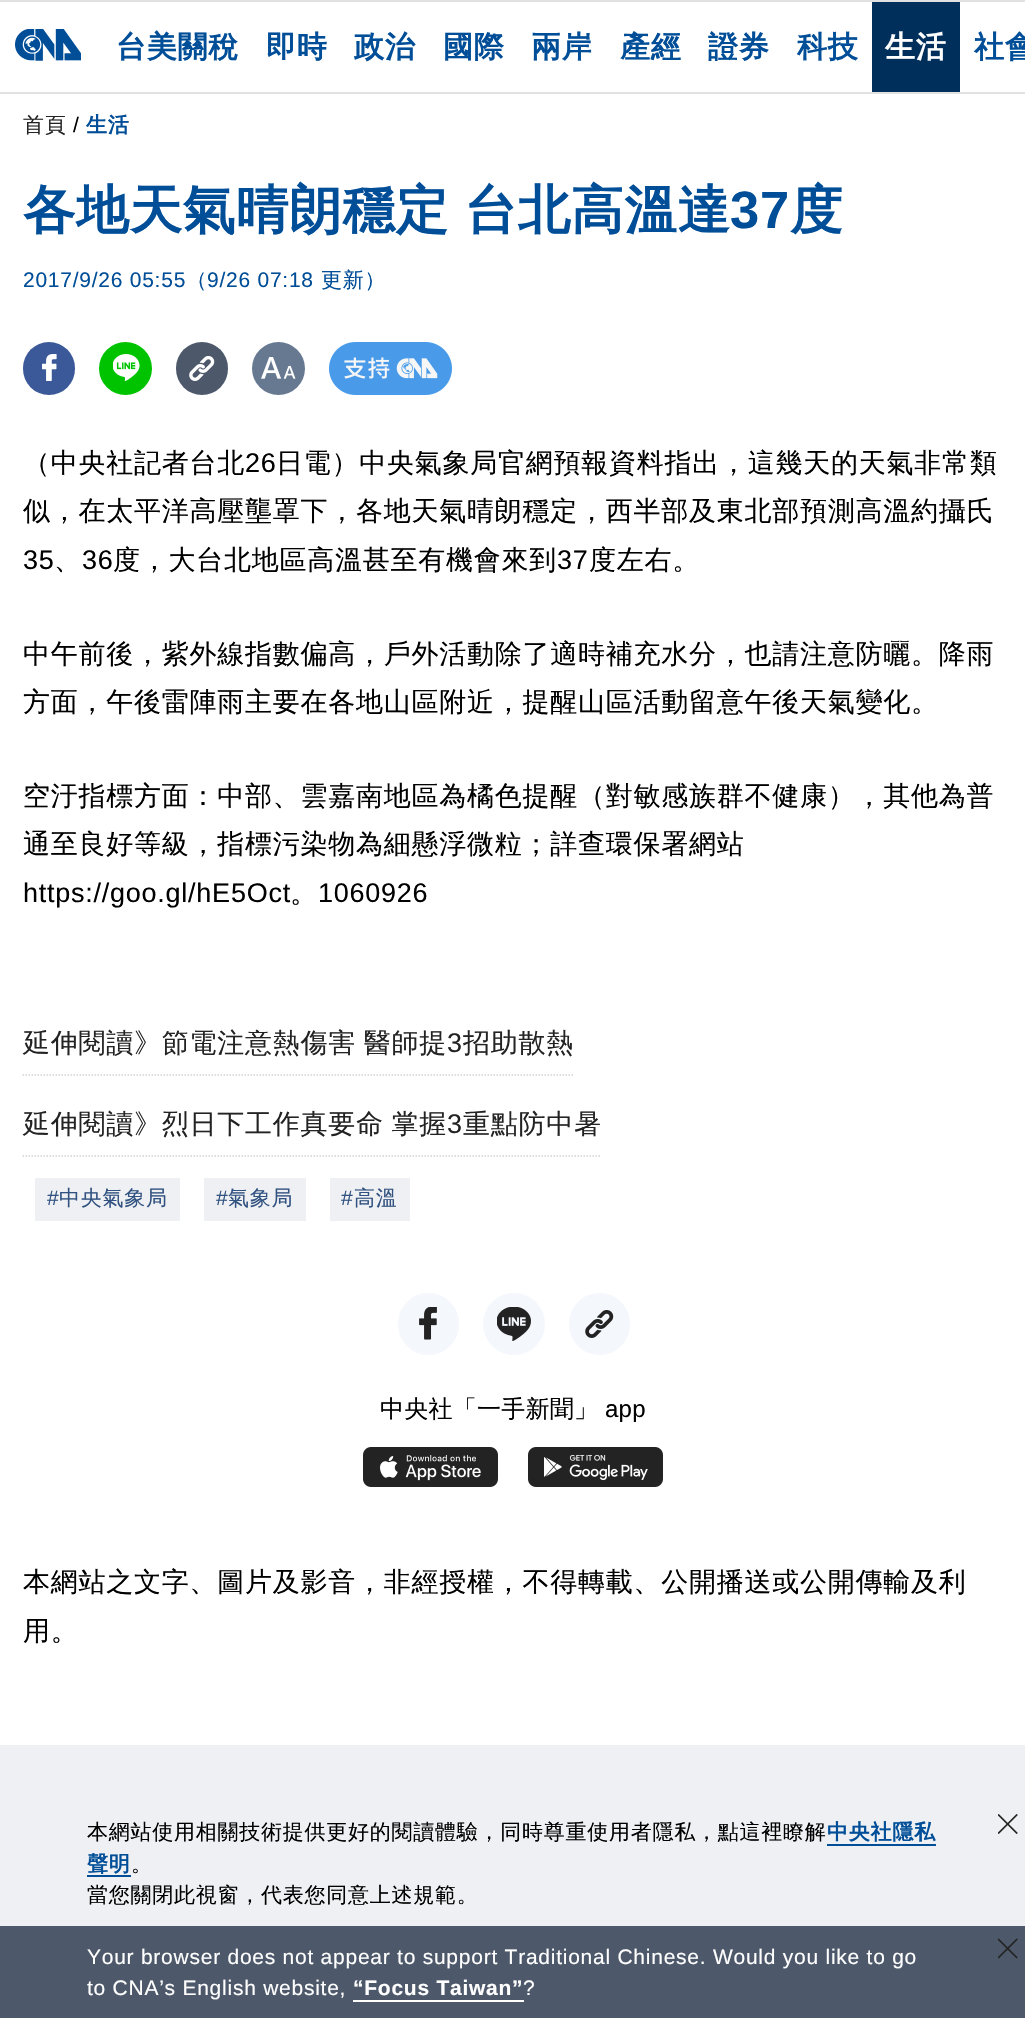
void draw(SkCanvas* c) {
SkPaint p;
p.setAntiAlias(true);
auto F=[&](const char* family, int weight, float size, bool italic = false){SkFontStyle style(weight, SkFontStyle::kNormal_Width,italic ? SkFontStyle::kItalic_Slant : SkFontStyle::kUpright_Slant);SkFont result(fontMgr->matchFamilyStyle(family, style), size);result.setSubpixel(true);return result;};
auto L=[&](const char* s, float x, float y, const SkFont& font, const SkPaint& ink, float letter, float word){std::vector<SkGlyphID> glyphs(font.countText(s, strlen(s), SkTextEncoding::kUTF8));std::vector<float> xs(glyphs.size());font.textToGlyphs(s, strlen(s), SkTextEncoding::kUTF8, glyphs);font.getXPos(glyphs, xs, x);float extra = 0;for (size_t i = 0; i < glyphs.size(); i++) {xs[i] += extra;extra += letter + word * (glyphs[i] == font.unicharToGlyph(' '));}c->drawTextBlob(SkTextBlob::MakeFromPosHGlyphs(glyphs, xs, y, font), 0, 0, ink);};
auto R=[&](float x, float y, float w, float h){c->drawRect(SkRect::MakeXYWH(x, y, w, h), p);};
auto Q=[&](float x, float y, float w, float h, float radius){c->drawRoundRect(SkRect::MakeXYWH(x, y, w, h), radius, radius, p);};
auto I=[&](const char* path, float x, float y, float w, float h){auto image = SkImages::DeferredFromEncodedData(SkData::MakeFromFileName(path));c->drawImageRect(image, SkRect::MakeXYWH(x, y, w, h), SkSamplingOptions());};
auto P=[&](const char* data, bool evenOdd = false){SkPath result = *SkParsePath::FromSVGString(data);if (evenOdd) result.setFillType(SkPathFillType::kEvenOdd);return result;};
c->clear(0xffffffff);
p.setColor(0xffe1e1e1);
R(0,0,1025,2);
R(0,92,1025,2);
I("1.png",15,29,66,32);
auto f1 = F("WenQuanYi Zen Hei",700,30);
p.setColor(0xff004e98);
L("台美關稅",116,57,f1,p,.75,0);
L("即時",266,57,f1,p,.75,0);
L("政治",354,57,f1,p,.75,0);
L("國際",443,57,f1,p,.75,0);
L("兩岸",531,57,f1,p,.75,0);
L("產經",620,57,f1,p,.75,0);
L("證券",708,57,f1,p,.75,0);
L("科技",797,57,f1,p,.75,0);
p.setColor(0xff002f5b);
R(872,2,88,90);
p.setColor(0xffffffff);
L("生活",885,57,f1,p,.75,0);
p.setColor(0xff004e98);
L("社會",974,57,f1,p,.75,0);
auto f2 = F("WenQuanYi Zen Hei",500,21);
p.setColor(0xff232323);
L("首頁",23,132,f2,p,.75,0);
auto f3 = F("Liberation Sans",400,21);
p.setColor(0xff000000);
L("/",73,132,f3,p,.75,0);
auto f4 = F("WenQuanYi Zen Hei",700,21);
p.setColor(0xff004e98);
L("生活",86,132,f4,p,.75,0);
auto f5 = F("WenQuanYi Zen Hei",700,52.5);
L("各地天氣晴朗穩定 台北高溫達",23,228,f5,p,.75,-1);
auto f6 = F("Liberation Sans",700,52.5);
L("37",730,228,f6,p,.75,0);
L("度",790,228,f5,p,.75,0);
L("2017/9/26 05:55",23,287,f3,p,.75,0);
L("（",186,287,f2,p,.75,0);
L("9/26 07:18",207,287,f3,p,.75,0);
L("更新）",321,287,f2,p,.75,0);
p.setColor(0xff3b5999);
Q(23,342,52,53,26);
I("2.png",42,354,15,27);
p.setColor(0xff00c300);
c->drawCircle(125.5,368.5,26.5,p);
I("3.png",113,354,27,27);
p.setColor(0xff4d596a);
Q(176,342,52,53,26);
I("4.png",189,356,26,25);
p.setColor(0xff677991);
c->drawCircle(278.5,368.5,26.5,p);
I("5.png",261,357,35,22);
I("6.png",329,342,123,53);
auto f7 = F("WenQuanYi Zen Hei",500,27);
p.setColor(0xff000000);
L("（中央社記者台北",23,472,f7,p,.75,0);
auto f8 = F("Liberation Sans",400,27);
L("26",245,472,f8,p,.75,0);
L("日電）中央氣象局官網預報資料指出，這幾天的天氣非常類",276,472,f7,p,.75,0);
L("似，在太平洋高壓壟罩下，各地天氣晴朗穩定，西半部及東北部預測高溫約攝氏",23,520,f7,p,.75,0);
L("35",23,569,f8,p,.75,0);
L("、",54,569,f7,p,.75,0);
L("36",82,569,f8,p,.75,0);
L("度，大台北地區高溫甚至有機會來到",113,569,f7,p,.75,0);
L("37",557,569,f8,p,.75,0);
L("度左右。",589,569,f7,p,.75,0);
L("中午前後，紫外線指數偏高，戶外活動除了適時補充水分，也請注意防曬。降雨",23,663,f7,p,.75,0);
L("方面，午後雷陣雨主要在各地山區附近，提醒山區活動留意午後天氣變化。",23,711,f7,p,.75,0);
L("空汙指標方面：中部、雲嘉南地區為橘色提醒（對敏感族群不健康），其他為普",23,805,f7,p,.75,0);
L("通至良好等級，指標污染物為細懸浮微粒；詳查環保署網站",23,853,f7,p,.75,0);
L("https://goo.gl/hE5Oct",23,902,f8,p,.75,0);
L("。",290,902,f7,p,.75,0);
L("1060926",318,902,f8,p,.75,0);
p.setColor(0xff232323);
L("延伸閱讀》節電注意熱傷害 醫師提",23,1052,f7,p,.75,-1);
p.setStroke(true);
p.setStrokeWidth(1.5);
p.setColor(0xffd2d2d2);
p.setPathEffect(SkDashPathEffect::Make({{1.5f,1.5f}}, 0));
c->drawPath(P("M22.5 1075h552"),p);
p.setPathEffect(nullptr);
p.setStroke(false);
p.setColor(0xff232323);
L("3",447,1052,f8,p,.75,0);
L("招助散熱",463,1052,f7,p,.75,0);
L("延伸閱讀》烈日下工作真要命 掌握",23,1133,f7,p,.75,-1);
p.setStroke(true);
p.setColor(0xffd2d2d2);
p.setPathEffect(SkDashPathEffect::Make({{1.5f,1.5f}}, 0));
c->drawPath(P("M22.5 1156h579"),p);
p.setPathEffect(nullptr);
p.setStroke(false);
p.setColor(0xff232323);
L("3",447,1133,f8,p,.75,0);
L("重點防中暑",463,1133,f7,p,.75,0);
p.setColor(0xffeef0f3);
R(35,1178,145,43);
p.setColor(0xff315280);
L("#",47,1205,f3,p,.75,0);
L("中央氣象局",59,1205,f2,p,.75,0);
p.setColor(0xffeef0f3);
R(204,1178,102,43);
p.setColor(0xff315280);
L("#",216,1205,f3,p,.75,0);
L("氣象局",228,1205,f2,p,.75,0);
p.setColor(0xffeef0f3);
R(330,1178,80,43);
p.setColor(0xff315280);
L("#",341,1205,f3,p,.75,0);
L("高溫",354,1205,f2,p,.75,0);
p.setColor(0xfff4f7fc);
Q(398,1293,61,62,30.5);
I("7.png",419,1307,18,33);
c->drawCircle(514,1324,31,p);
I("8.png",497,1307,34,34);
Q(569,1293,61,62,30.5);
I("9.png",585,1310,29,28);
auto f9 = F("WenQuanYi Zen Hei",500,24);
p.setColor(0xff000000);
L("中央社「一手新聞」",380,1417,f9,p,.25,0);
auto f10 = F("Liberation Sans",400,24);
L("app",605,1417,f10,p,.25,0);
I("10.png",363,1447,135,40);
I("11.png",528,1447,135,40);
L("本網站之文字、圖片及影音，非經授權，不得轉載、公開播送或公開傳輸及利",23,1591,f7,p,.75,0);
L("用。",23,1640,f7,p,.75,0);
p.setColor(0xffeef0f3);
R(0,1745,1025,181);
p.setColor(0xff000000);
L("本網站使用相關技術提供更好的閱讀體驗，同時尊重使用者隱私，點這裡瞭解",87,1839,f2,p,.75,0);
p.setColor(0xff004e98);
L("中央社隱私",827,1839,f4,p,.75,0);
R(827,1844,109,2);
L("聲明",87,1871,f4,p,.75,0);
R(87,1875,44,2);
p.setColor(0xff000000);
L("。",131,1871,f2,p,.75,0);
L("當您關閉此視窗，代表您同意上述規範。",87,1902,f2,p,.75,0);
I("12.png",998,1814,20,20);
p.setColor(0xff4d596a);
R(0,1926,1025,92);
p.setColor(0xffffffff);
L("Your browser does not appear to support Traditional Chinese. Would you like to go",87,1964,f3,p,.75,0);
L("to CNA’s English website,",87,1995,f3,p,.75,0);
auto f11 = F("Liberation Sans",700,21);
L("“Focus Taiwan”",353,1995,f11,p,.75,0);
R(353,2000,171,2);
L("?",523,1995,f3,p,.75,0);
I("13.png",998,1938,20,21);
}
